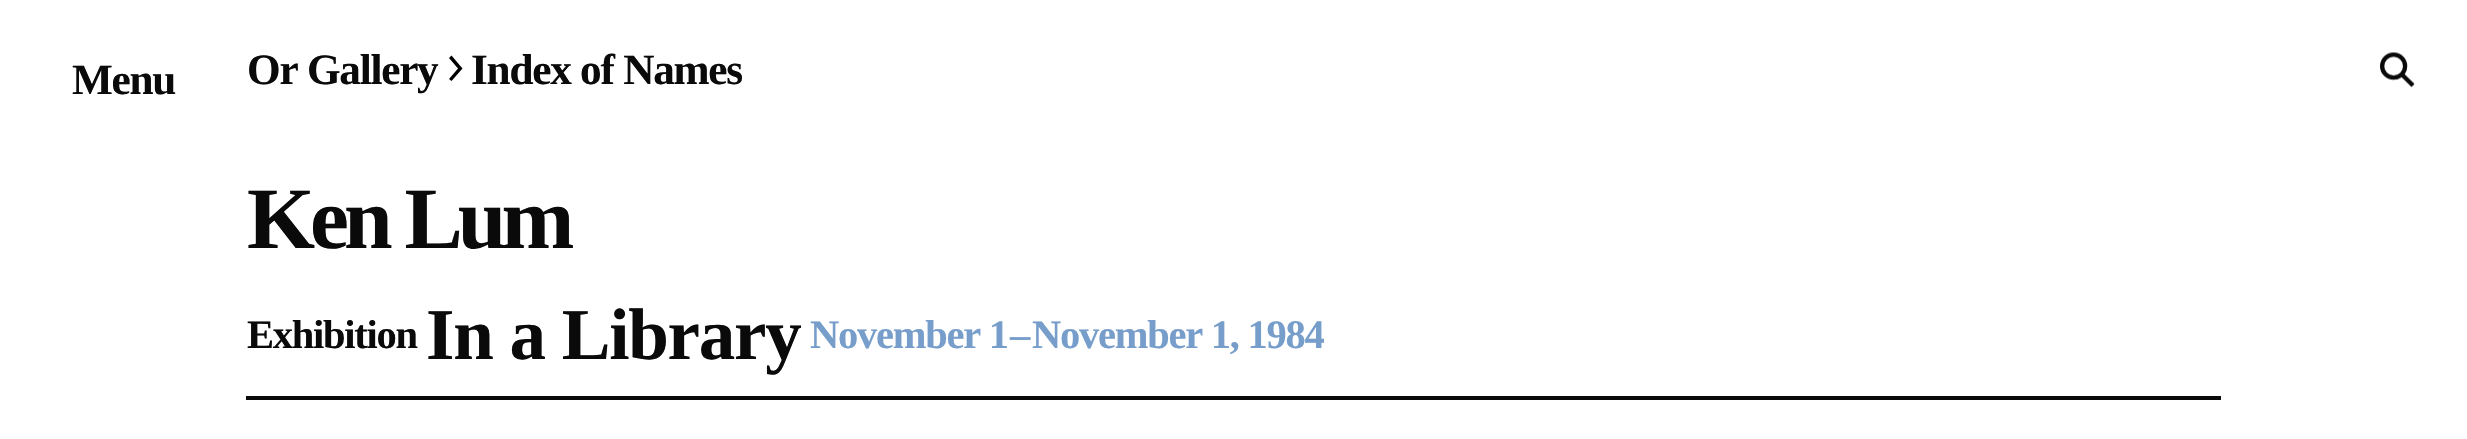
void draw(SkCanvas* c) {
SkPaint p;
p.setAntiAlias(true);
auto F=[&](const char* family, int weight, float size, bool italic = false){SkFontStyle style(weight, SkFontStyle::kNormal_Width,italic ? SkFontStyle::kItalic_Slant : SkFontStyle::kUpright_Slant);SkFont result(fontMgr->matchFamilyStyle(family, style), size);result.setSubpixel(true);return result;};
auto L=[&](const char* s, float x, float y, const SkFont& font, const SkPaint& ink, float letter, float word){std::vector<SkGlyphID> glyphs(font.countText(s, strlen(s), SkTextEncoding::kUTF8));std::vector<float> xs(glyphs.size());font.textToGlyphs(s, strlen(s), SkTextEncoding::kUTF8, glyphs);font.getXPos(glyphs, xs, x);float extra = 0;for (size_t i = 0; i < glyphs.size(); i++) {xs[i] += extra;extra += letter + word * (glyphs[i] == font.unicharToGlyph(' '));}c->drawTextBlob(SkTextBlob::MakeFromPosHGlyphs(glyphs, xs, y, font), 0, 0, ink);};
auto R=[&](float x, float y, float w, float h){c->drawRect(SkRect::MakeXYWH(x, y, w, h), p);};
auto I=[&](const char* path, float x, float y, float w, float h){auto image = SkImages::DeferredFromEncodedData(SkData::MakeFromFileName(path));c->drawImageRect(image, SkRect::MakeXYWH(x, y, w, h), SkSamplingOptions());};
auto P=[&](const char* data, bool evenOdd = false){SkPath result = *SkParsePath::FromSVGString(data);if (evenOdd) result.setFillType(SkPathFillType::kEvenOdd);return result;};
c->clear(0xffffffff);
auto f1 = F("Liberation Serif",700,43.25);
p.setColor(0xff0a0a0a);
L("Menu",72,94,f1,p,-1.25,0);
L("Or Gallery",247,84,f1,p,-1.25,0);
p.setColor(0xff000000);
c->drawPath(P("M449 79l2.5 2l11-12.5l-11-13l-2.5 2.5l9 10.5z"),p);
p.setColor(0xff0a0a0a);
L("Index of Names",471,84,f1,p,-1.25,0);
auto f2 = F("Liberation Serif",700,87.5);
L("Ken Lum",247,248,f2,p,-5,0);
R(246,396,1975,4);
auto f3 = F("Liberation Serif",700,40.5);
L("Exhibition",247,348,f3,p,-1.25,0);
auto f4 = F("Liberation Serif",700,73);
L("In a Library",426,359,f4,p,-1.25,0);
p.setColor(0xff779ecb);
L("November 1",810,348,f3,p,-1.25,0);
L("–",1010,348,f3,p,-1.25,0);
L("November 1, 1984",1032,348,f3,p,-1.25,0);
I("1.png",2380,52,35,36);
}
